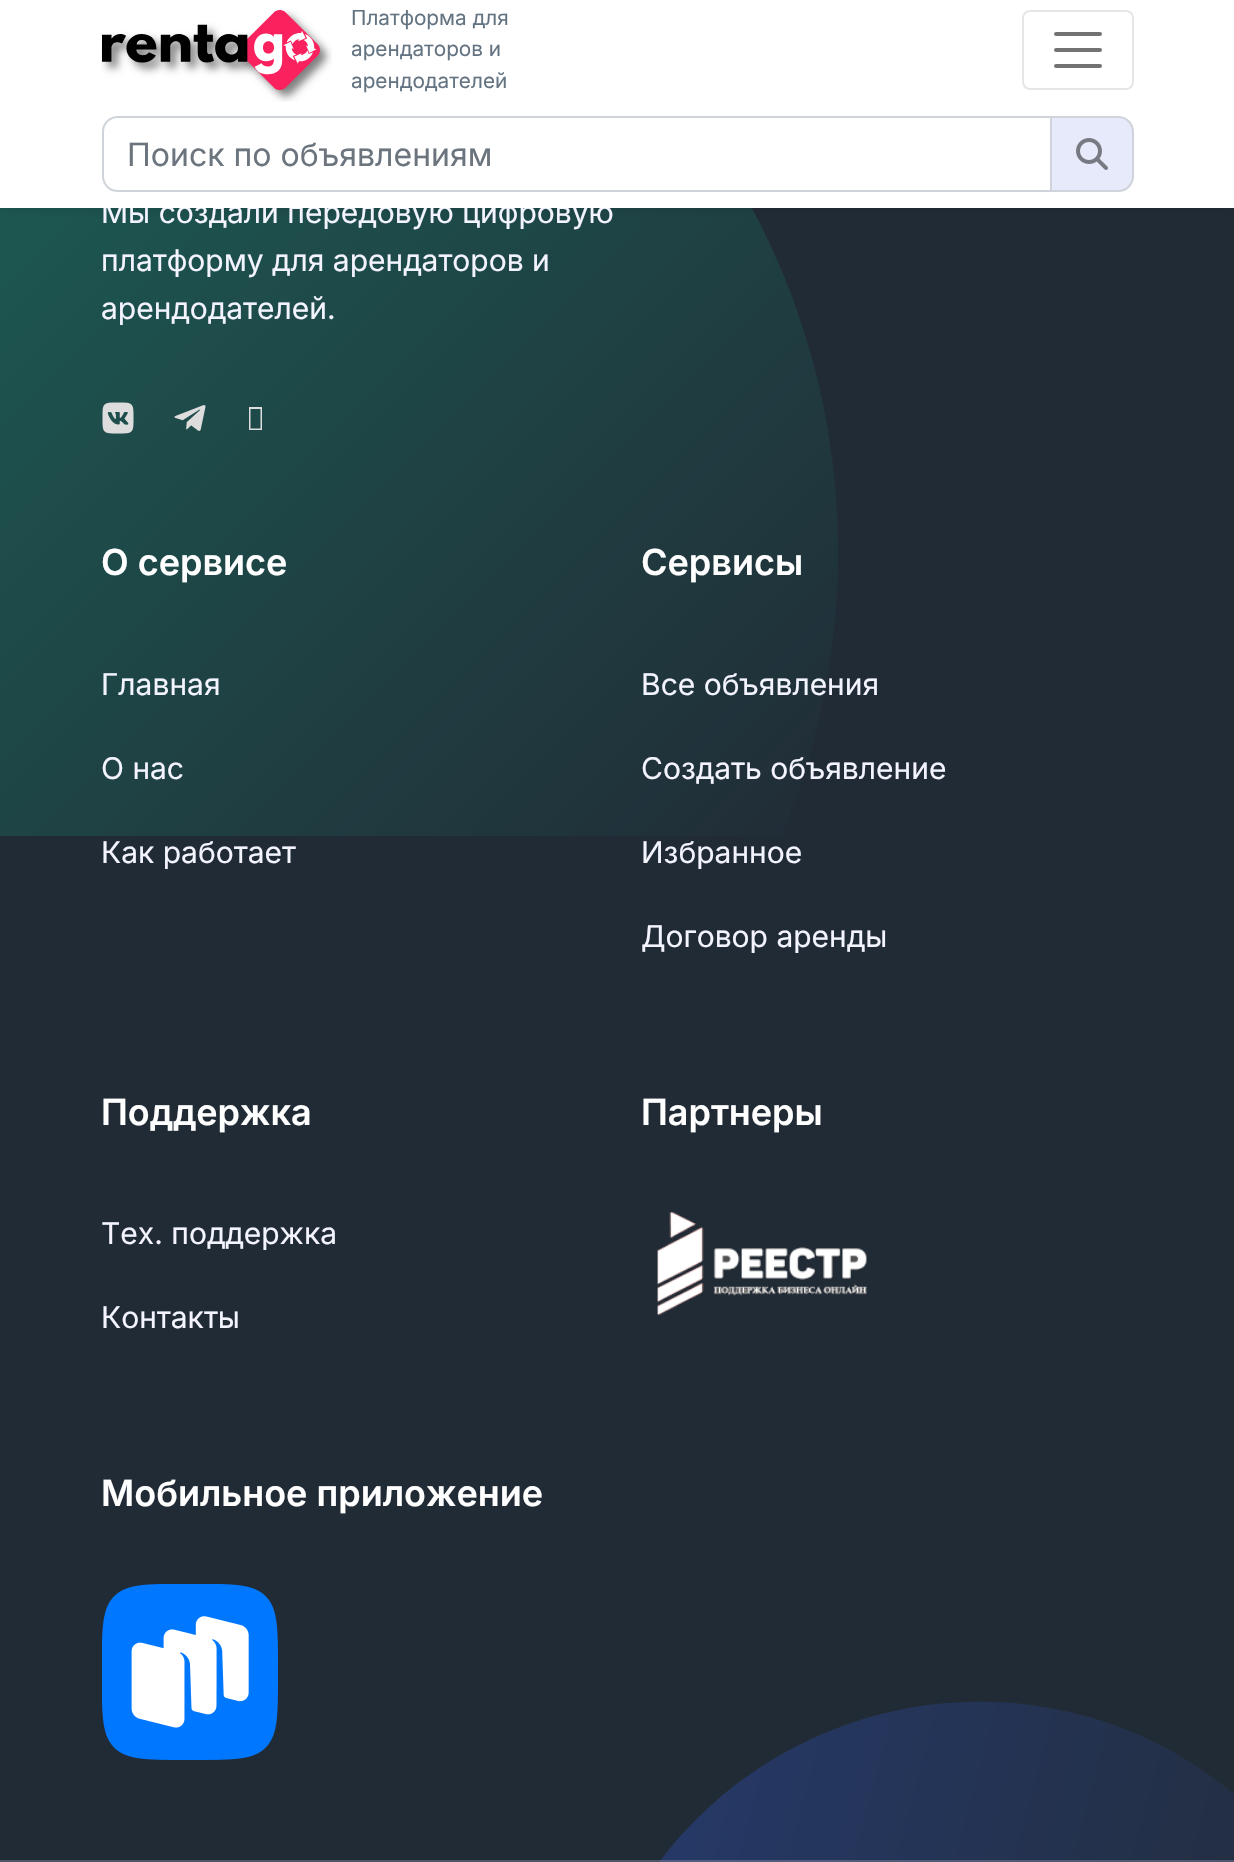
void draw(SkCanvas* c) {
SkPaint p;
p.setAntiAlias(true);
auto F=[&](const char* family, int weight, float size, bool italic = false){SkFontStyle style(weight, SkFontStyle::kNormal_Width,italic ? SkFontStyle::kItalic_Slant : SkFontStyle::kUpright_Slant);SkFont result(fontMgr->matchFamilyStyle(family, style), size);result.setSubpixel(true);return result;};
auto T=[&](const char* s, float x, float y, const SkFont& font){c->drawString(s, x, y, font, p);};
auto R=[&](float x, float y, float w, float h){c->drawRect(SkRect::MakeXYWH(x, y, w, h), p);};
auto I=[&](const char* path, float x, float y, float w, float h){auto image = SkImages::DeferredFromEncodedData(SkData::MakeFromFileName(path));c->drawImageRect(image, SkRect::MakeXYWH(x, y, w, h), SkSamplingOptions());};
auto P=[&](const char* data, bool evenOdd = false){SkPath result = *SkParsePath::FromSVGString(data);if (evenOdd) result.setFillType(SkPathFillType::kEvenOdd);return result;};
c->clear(0xff212b36);
c->save();
c->clipRect(SkRect::MakeXYWH(0,0,1140,836));
{
const SkColor colors[] = {0xff1b685c,0xff212b36};
const float stops[] = {0,1};
const SkPoint ends[] = {{-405,37}, {625,1067}};
p.setShader(SkGradientShader::MakeLinear(ends, colors, stops, 2, SkTileMode::kClamp));
p.setAlpha(255);
}
c->drawPath(P("M-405 37c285-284 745-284 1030 0c284 285 284 745 0 1030c-285 284-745 284-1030 0c-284-285-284-745 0-1030z"),p);
c->restore();
p.setShader(nullptr);
p.setColor(0x12000000);
p.setMaskFilter(SkMaskFilter::MakeBlur(kNormal_SkBlurStyle, 4));
c->drawRect(SkRect::MakeXYWH(0,4,1234,208),p);
p.setMaskFilter(nullptr);
auto f1 = F("Inter",400,30);
p.setColor(0xfff3f4fe);
T("Мы создали передовую цифровую",101,223,f1);
p.setColor(0xffffffff);
R(0,0,1234,208);
I("1.png",101,10,231,92);
auto f2 = F("Inter",400,20.75);
p.setColor(0xff637381);
T("Платформа для",351,25,f2);
T("арендаторов и",351,56,f2);
T("арендодателей",351,88,f2);
p.setStroke(true);
p.setStrokeWidth(2);
p.setColor(0xffe6e6e6);
c->drawRoundRect(SkRect::MakeXYWH(1023,11,110,78),7,7,p);
p.setStrokeWidth(4);
p.setStrokeCap(SkPaint::kRound_Cap);
p.setColor(0xff737373);
c->drawPath(P("M1056 34h44m-44 16h44m-44 16h44"),p);
p.setStrokeWidth(2);
p.setStrokeCap(SkPaint::kButt_Cap);
p.setColor(0xffced4da);
c->drawPath(P("M118 117h933v74h-933c-8.5 0-15-6.5-15-15v-44c0-8.5 6.5-15 15-15z"),p);
auto f3 = F("Inter",400,32);
p.setStroke(false);
p.setColor(0xff6c757d);
T("Поиск по объявлениям",127,166,f3);
p.setColor(0xffe7eafa);
c->drawPath(P("M1051 117h67c8.5 0 15 6.5 15 15v44c0 8.5-6.5 15-15 15h-67z"),p);
p.setStroke(true);
p.setColor(0xffced4da);
c->drawPath(P("M1051 117h67c8.5 0 15 6.5 15 15v44c0 8.5-6.5 15-15 15h-67z"),p);
I("2.png",1076,138,32,32);
p.setStroke(false);
p.setColor(0xfff3f4fe);
T("платформу для арендаторов и",101,271,f1);
T("арендодателей.",101,319,f1);
I("3.png",102,402,32,32);
I("4.png",174,405,32,26);
p.setColor(0xffdddddd);
c->drawPath(P("M249 430v-23h13v23zm1.5-1.5h10v-19.5h-10z"),p);
auto f4 = F("Inter",600,36);
p.setColor(0xffffffff);
T("О сервисе",101,575,f4);
p.setColor(0xfff3f4fe);
T("Главная",101,695,f1);
T("О нас",101,779,f1);
T("Как работает",101,863,f1);
p.setColor(0xffffffff);
T("Сервисы",641,575,f4);
p.setColor(0xfff3f4fe);
T("Все объявления",641,695,f1);
T("Создать объявление",641,779,f1);
T("Избранное",641,863,f1);
T("Договор аренды",641,947,f1);
p.setColor(0xffffffff);
T("Поддержка",101,1125,f4);
p.setColor(0xfff3f4fe);
T("Тех. поддержка",101,1244,f1);
T("Контакты",101,1328,f1);
p.setColor(0xffffffff);
T("Партнеры",641,1125,f4);
I("5.png",657,1212,210,103);
T("Мобильное приложение",101,1506,f4);
I("6.png",102,1584,176,176);
{
const SkColor colors[] = {0xff263968,0xff212b36};
const float stops[] = {0,1};
const SkPoint ends[] = {{594,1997}, {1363,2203}};
p.setShader(SkGradientShader::MakeLinear(ends, colors, stops, 2, SkTileMode::kClamp));
p.setAlpha(255);
}
c->drawPath(P("M594 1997c57-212 275-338 488-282c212 57 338 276 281 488c-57 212-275 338-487 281c-213-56-339-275-282-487z"),p);
p.setShader(nullptr);
p.setColor(0x6e8890a4);
R(0,1860,1234,2);
}
